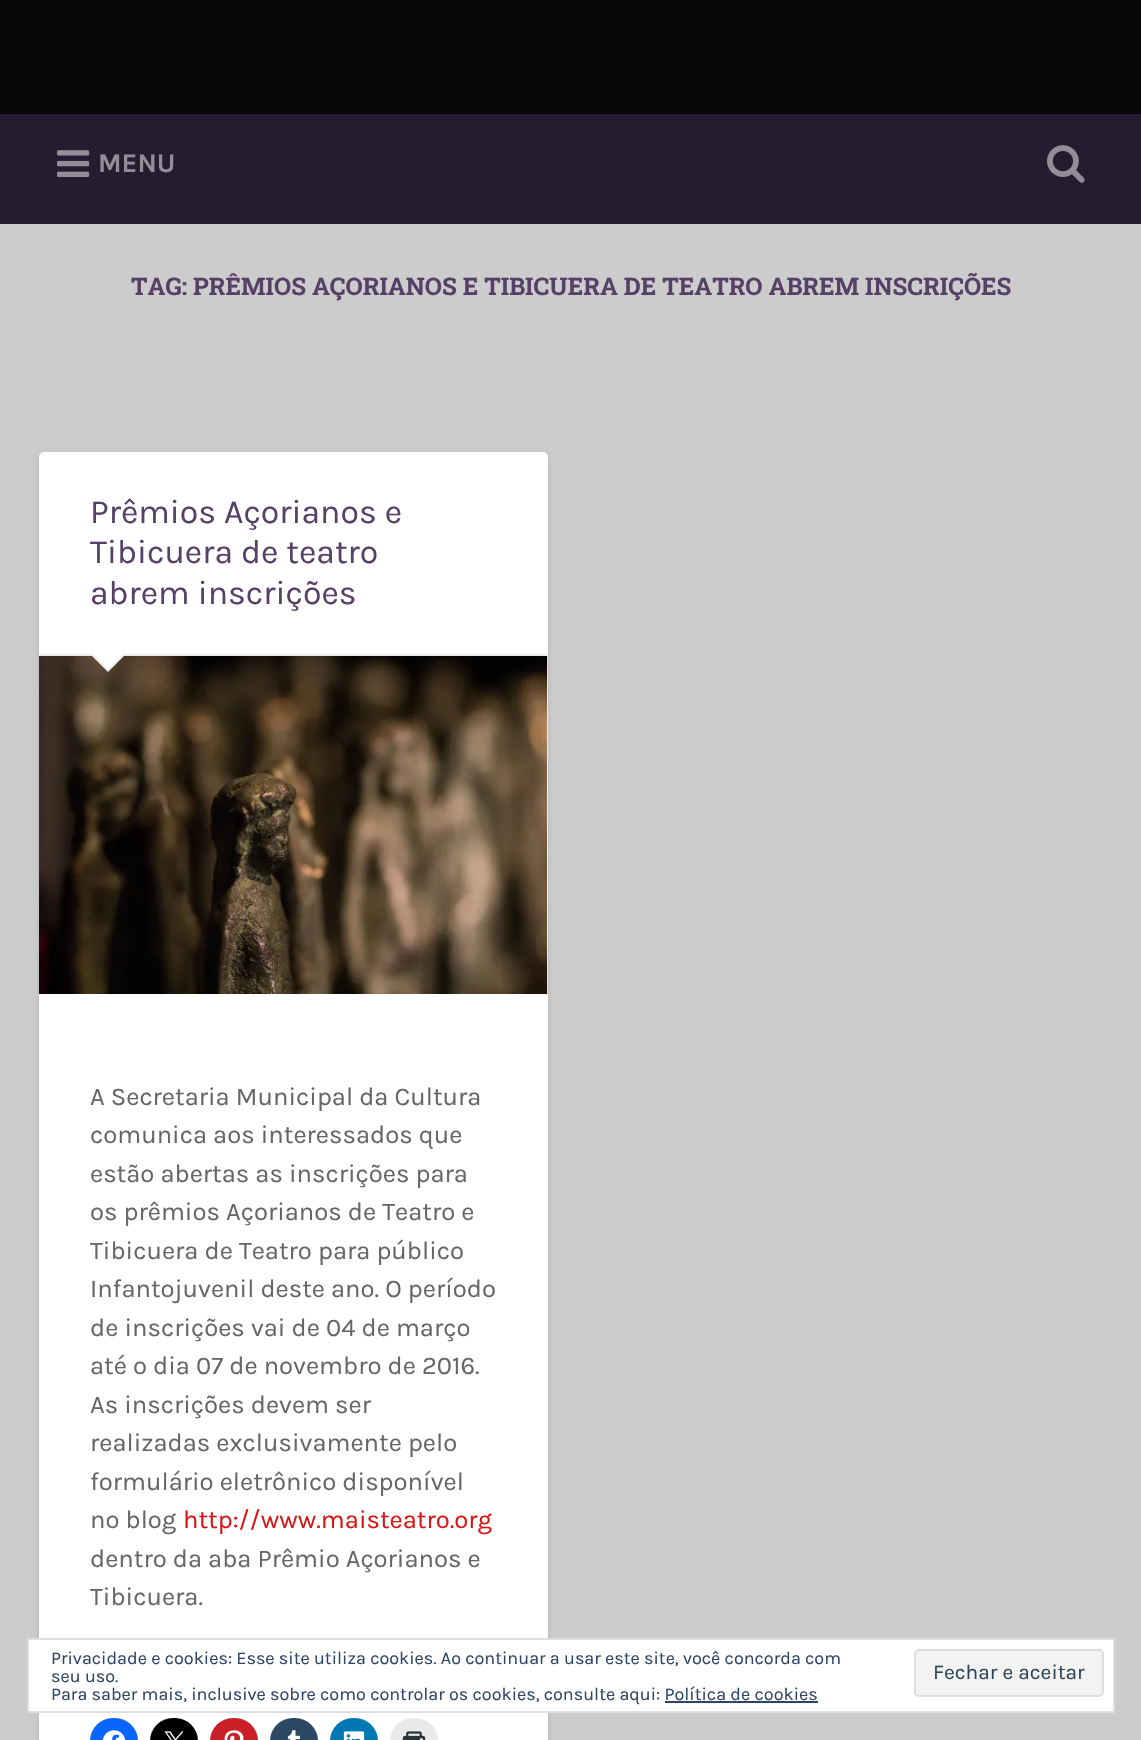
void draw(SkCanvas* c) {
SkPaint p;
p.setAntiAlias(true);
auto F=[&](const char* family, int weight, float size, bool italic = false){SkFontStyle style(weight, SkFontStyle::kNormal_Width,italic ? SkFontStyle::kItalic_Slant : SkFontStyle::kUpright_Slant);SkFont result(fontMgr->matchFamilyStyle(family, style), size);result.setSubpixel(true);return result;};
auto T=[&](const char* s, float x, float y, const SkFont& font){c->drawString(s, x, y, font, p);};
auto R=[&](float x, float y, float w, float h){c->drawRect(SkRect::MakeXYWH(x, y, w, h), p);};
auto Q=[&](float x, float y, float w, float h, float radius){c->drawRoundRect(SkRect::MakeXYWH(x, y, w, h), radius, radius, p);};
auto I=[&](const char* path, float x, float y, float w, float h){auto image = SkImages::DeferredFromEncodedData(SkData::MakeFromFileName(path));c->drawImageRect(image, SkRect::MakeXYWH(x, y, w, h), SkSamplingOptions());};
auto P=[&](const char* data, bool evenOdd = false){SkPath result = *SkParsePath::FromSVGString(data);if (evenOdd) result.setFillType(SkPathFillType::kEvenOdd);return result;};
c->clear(0xffcccccc);
p.setColor(0xff070707);
R(0,0,1141,114);
p.setColor(0xff241c30);
R(0,114,1141,110);
I("1.png",57,150,33,27);
auto f1 = F("Karla",700,27);
p.setColor(0xff928e98);
T("MENU",98,172,f1);
I("2.png",1047,145,38,38);
auto f2 = F("Roboto Slab",700,24.3);
p.setColor(0xff574067);
T("TAG: PRÊMIOS AÇORIANOS E TIBICUERA DE TEATRO ABREM INSCRIÇÕES",131,295,f2);
p.setColor(0x1a000000);
p.setMaskFilter(SkMaskFilter::MakeBlur(kNormal_SkBlurStyle, 3));
c->drawRoundRect(SkRect::MakeXYWH(39,453,509,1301),5,5,p);
p.setMaskFilter(nullptr);
p.setColor(0xffffffff);
Q(39,452,509,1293,5);
p.setColor(0xffeeeeee);
R(39,654,509,2);
auto f3 = F("Karla",400,33.75);
p.setColor(0xff574067);
T("Prêmios Açorianos e",90,523,f3);
T("Tibicuera de teatro",90,563,f3);
T("abrem inscrições",90,604,f3);
I("3.png",39,656,509,338);
p.setColor(0xffeeeeee);
c->drawPath(P("M90 654h36l-18 18z"),p);
p.setColor(0xffffffff);
c->drawPath(P("M91.5 652.5h33l-16.5 16.5z"),p);
auto f4 = F("Karla",400,25.6);
p.setColor(0xff666666);
T("A Secretaria Municipal da Cultura",90,1105,f4);
T("comunica aos interessados que",90,1143,f4);
T("estão abertas as inscrições para",90,1182,f4);
T("os prêmios Açorianos de Teatro e",90,1220,f4);
T("Tibicuera de Teatro para público",90,1259,f4);
T("Infantojuvenil deste ano. O período",90,1297,f4);
T("de inscrições vai de 04 de março",90,1336,f4);
T("até o dia 07 de novembro de 2016.",90,1374,f4);
T("As inscrições devem ser",90,1413,f4);
T("realizadas exclusivamente pelo",90,1451,f4);
T("formulário eletrônico disponível",90,1490,f4);
T("no blog",90,1528,f4);
p.setColor(0xffd81616);
T("http://www.maisteatro.org",183,1528,f4);
p.setColor(0xff666666);
T("dentro da aba Prêmio Açorianos e",90,1567,f4);
T("Tibicuera.",90,1605,f4);
p.setColor(0xff0866ff);
Q(90,1718,48,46,24);
I("4.png",102,1730,24,10);
p.setColor(0xff000000);
Q(150,1718,48,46,24);
I("5.png",164,1731,20,9);
p.setColor(0xffca1f27);
Q(210,1718,48,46,24);
I("6.png",224,1730,20,10);
p.setColor(0xff2c4762);
Q(270,1718,48,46,24);
I("7.png",287,1730,13,10);
p.setColor(0xff0077b5);
Q(330,1718,48,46,24);
I("8.png",343,1731,22,9);
p.setColor(0xffe9e9e9);
Q(390,1718,48,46,24);
I("9.png",402,1731,24,9);
p.setColor(0xffffffff);
c->drawRect(SkRect::MakeXYWH(28,1639,1086,73),p);
p.setStroke(true);
p.setStrokeWidth(2);
p.setColor(0xffdedede);
c->drawRect(SkRect::MakeXYWH(28,1639,1086,73),p);
auto f5 = F("Karla",400,18);
p.setStroke(false);
p.setColor(0xff2e4467);
T("Privacidade e cookies: Esse site utiliza cookies. Ao continuar a usar este site, você concorda com",51,1664,f5);
T("seu uso.",51,1682,f5);
p.setColor(0xfff3f3f3);
c->drawRoundRect(SkRect::MakeXYWH(915,1650,188,46),4,4,p);
p.setStroke(true);
p.setColor(0xffdedede);
c->drawRoundRect(SkRect::MakeXYWH(915,1650,188,46),4,4,p);
auto f6 = F("Karla",400,21);
p.setStroke(false);
p.setColor(0xff2e4453);
T("Fechar e aceitar",933,1679,f6);
p.setColor(0xff2e4467);
T("Para saber mais, inclusive sobre como controlar os cookies, consulte aqui: Política de cookies",51,1700,f5);
R(665,1701,153,2);
}
